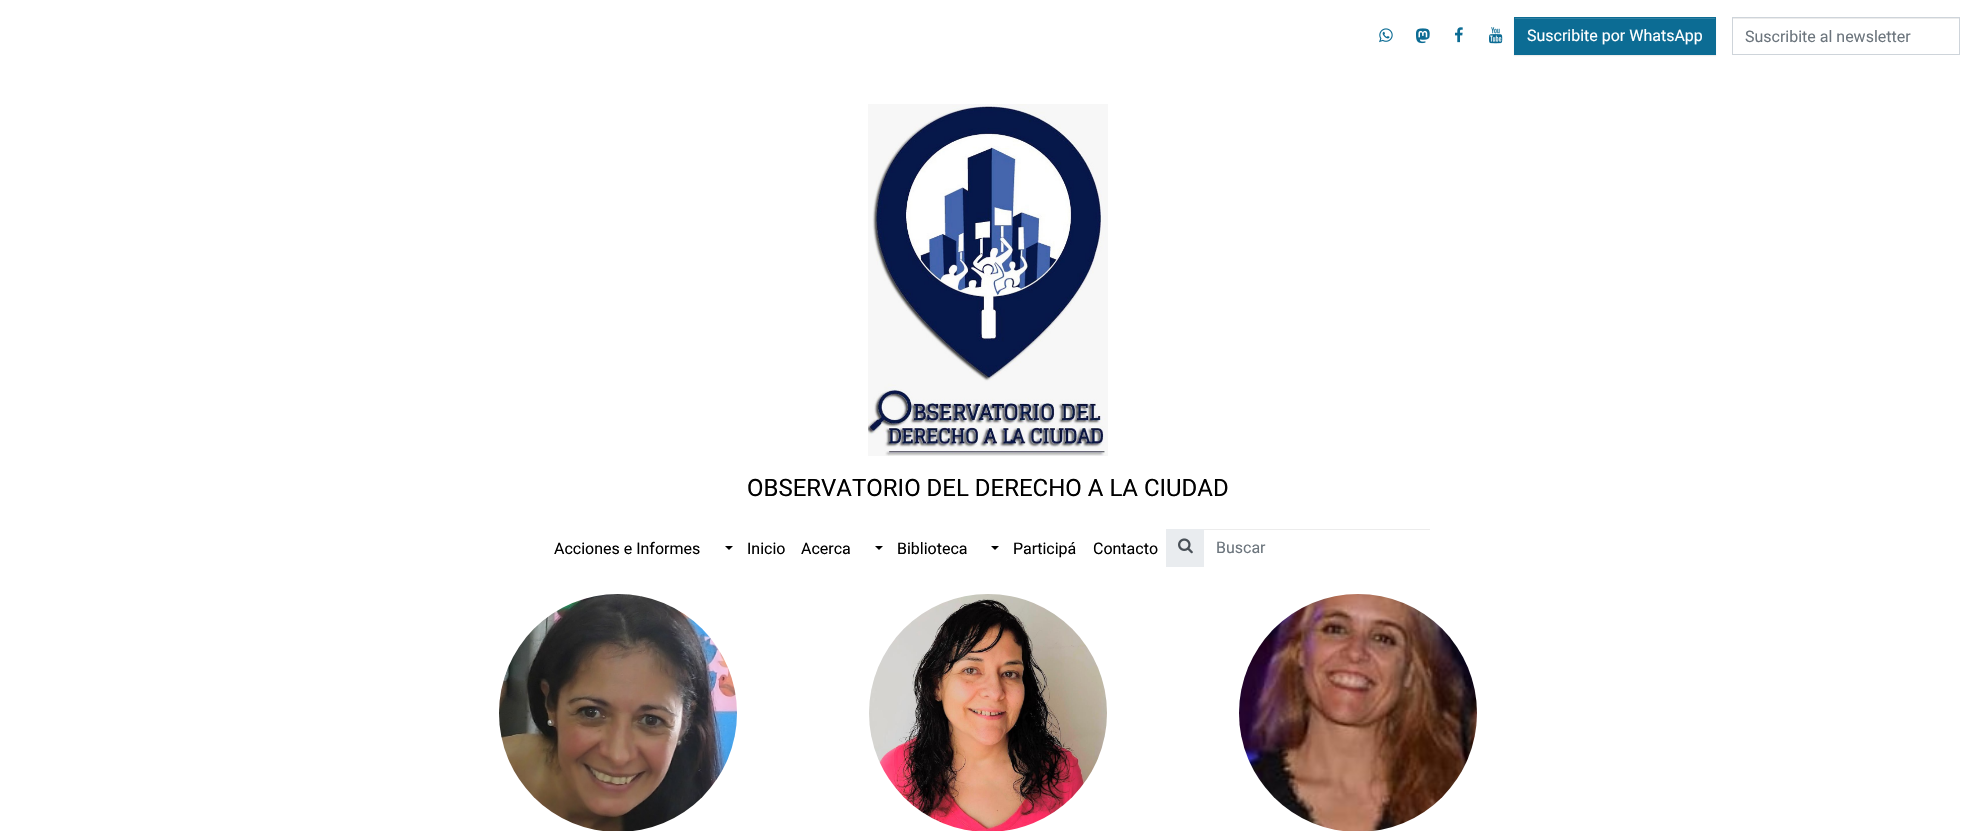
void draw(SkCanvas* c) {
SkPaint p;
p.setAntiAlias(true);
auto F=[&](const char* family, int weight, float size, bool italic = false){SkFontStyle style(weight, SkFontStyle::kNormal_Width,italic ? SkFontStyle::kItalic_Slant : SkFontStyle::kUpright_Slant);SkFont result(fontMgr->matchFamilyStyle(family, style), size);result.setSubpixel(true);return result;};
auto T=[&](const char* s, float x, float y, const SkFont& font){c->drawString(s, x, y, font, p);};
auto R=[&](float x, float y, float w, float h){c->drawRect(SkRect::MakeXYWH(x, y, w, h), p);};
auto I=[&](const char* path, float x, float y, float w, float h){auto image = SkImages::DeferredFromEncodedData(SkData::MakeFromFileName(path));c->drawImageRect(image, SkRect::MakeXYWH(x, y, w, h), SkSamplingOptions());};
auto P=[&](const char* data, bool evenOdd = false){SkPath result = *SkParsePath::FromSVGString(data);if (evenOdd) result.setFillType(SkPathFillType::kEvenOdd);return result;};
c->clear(0xffffffff);
I("1.png",1379,28,14,15);
I("2.png",1416,28,14,16);
I("3.png",1455,27,8,16);
I("4.png",1489,27,14,17);
p.setColor(0x12000000);
p.setMaskFilter(SkMaskFilter::MakeBlur(kNormal_SkBlurStyle, .5));
c->drawRect(SkRect::MakeXYWH(1514,18,202,38),p);
p.setMaskFilter(nullptr);
p.setColor(0xff0c6c94);
R(1514,17,202,38);
p.setColor(0xff3082a4);
R(1515,18,200,1);
auto f1 = F("Roboto",400,16);
p.setColor(0xffffffff);
T("Suscribite por WhatsApp",1527,41,f1);
p.setColor(0xffececec);
R(1733,18,226,1);
p.setStroke(true);
p.setStrokeWidth(1);
p.setColor(0xffced4da);
c->drawRect(SkRect::MakeXYWH(1732.5,17.5,227,37),p);
p.setStroke(false);
p.setColor(0xff6c757d);
T("Suscribite al newsletter",1745,42,f1);
I("5.png",868,104,240,352);
auto f2 = F("Roboto",400,24);
p.setColor(0xff000000);
T("OBSERVATORIO DEL DERECHO A LA CIUDAD",747,496,f2);
T("Acciones e Informes",554,554,f1);
c->drawPath(P("M725 546h8l-4 4z"),p);
T("Inicio",747,554,f1);
T("Acerca",801,554,f1);
c->drawPath(P("M875 546h8l-4 4z"),p);
T("Biblioteca",897,554,f1);
c->drawPath(P("M991 546h8l-4 4z"),p);
T("Participá",1013,554,f1);
T("Contacto",1093,554,f1);
p.setColor(0xffe9ecef);
R(1166,529,38,38);
I("6.png",1178,538,15,16);
p.setColor(0xffececec);
R(1204,529,226,1);
p.setColor(0xff6c757d);
T("Buscar",1216,553,f1);
I("7.png",499,594,238,237);
I("8.png",869,594,238,237);
I("9.png",1239,594,238,237);
}
